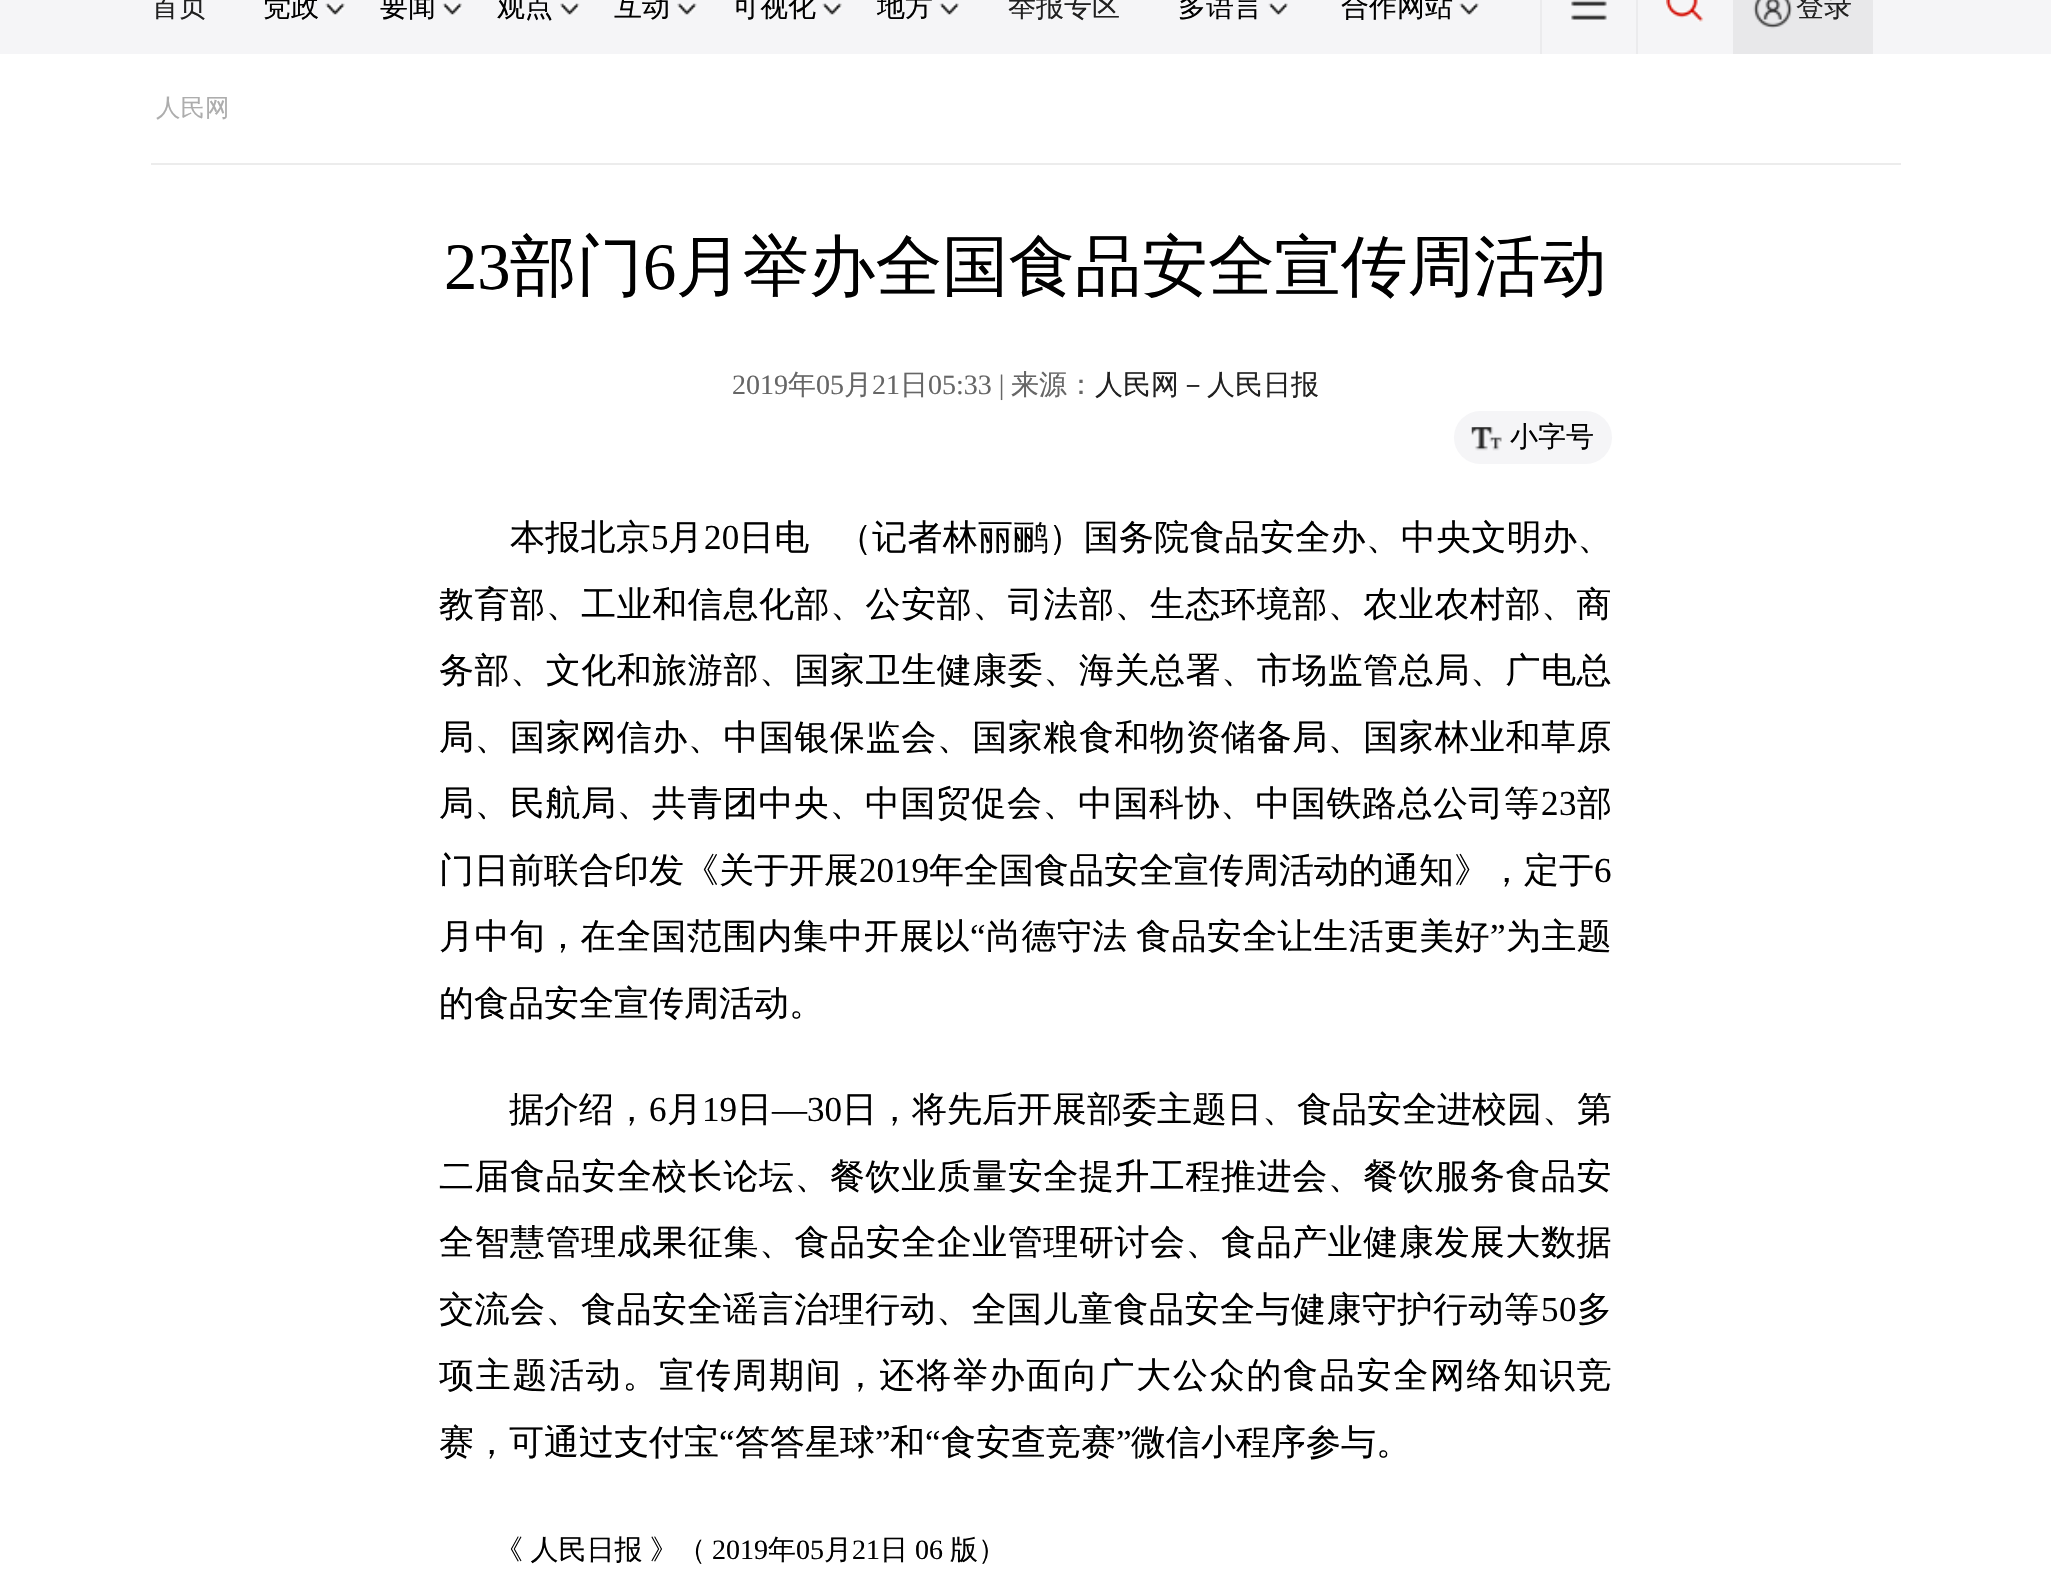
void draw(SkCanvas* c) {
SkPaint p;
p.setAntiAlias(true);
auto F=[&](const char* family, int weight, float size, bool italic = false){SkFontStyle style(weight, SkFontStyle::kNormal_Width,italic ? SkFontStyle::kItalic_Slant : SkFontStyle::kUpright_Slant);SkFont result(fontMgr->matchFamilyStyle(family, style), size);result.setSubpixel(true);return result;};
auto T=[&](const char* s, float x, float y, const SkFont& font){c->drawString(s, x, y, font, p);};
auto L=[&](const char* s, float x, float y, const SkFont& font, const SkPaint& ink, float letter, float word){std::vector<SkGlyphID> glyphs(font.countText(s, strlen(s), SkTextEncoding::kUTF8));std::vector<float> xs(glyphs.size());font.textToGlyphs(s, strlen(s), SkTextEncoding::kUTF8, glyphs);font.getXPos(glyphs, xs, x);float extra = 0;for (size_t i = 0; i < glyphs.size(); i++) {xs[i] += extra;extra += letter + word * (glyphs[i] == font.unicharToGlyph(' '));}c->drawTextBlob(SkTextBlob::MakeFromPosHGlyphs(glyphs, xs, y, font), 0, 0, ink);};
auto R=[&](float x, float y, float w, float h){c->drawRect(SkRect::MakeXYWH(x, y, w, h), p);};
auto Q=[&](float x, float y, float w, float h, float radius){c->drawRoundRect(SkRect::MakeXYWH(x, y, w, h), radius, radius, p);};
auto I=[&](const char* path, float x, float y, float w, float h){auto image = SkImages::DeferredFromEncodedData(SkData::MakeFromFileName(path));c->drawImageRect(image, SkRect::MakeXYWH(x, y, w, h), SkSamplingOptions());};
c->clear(0xffffffff);
p.setColor(0xfff5f5f7);
R(0,0,2051,54);
auto f1 = F("WenQuanYi Zen Hei",500,28);
p.setColor(0xff212121);
T("首页",151,16,f1);
p.setColor(0xff000000);
T("党政",263,16,f1);
I("1.png",325,3,20,12);
T("要闻",380,16,f1);
I("2.png",442,3,20,12);
T("观点",497,16,f1);
I("3.png",560,3,20,12);
T("互动",614,16,f1);
I("4.png",677,3,20,12);
T("可视化",732,16,f1);
I("1.png",822,3,20,12);
T("地方",877,16,f1);
I("2.png",939,3,20,12);
p.setColor(0xff212121);
T("举报专区",1008,16,f1);
p.setColor(0xff000000);
T("多语言",1178,16,f1);
I("2.png",1268,3,20,12);
T("合作网站",1341,16,f1);
I("5.png",1459,3,20,12);
p.setColor(0xffebebed);
R(1636,0,2,54);
R(1540,0,2,54);
I("6.png",1571,0,36,20);
I("7.png",1666,0,38,23);
p.setColor(0xffe8e8ea);
R(1733,0,140,54);
I("8.png",1753,0,39,29);
p.setColor(0xff212121);
T("登录",1796,16,f1);
p.setColor(0xffececec);
R(151,163,1750,2);
auto f2 = F("WenQuanYi Zen Hei",500,24.5);
p.setColor(0xffadadad);
T("人民网",156,116,f2);
auto f3 = F("Liberation Serif",400,66.5);
p.setColor(0xff000000);
T("23",444,289,f3);
auto f4 = F("WenQuanYi Zen Hei",500,66.5);
T("部门",510,289,f4);
T("6",643,289,f3);
T("月举办全国食品安全宣传周活动",676,289,f4);
auto f5 = F("Liberation Serif",400,28);
p.setColor(0xff666666);
T("2019",732,394,f5);
T("年",788,394,f1);
T("05",816,394,f5);
T("月",844,394,f1);
T("21",872,394,f5);
T("日",900,394,f1);
T("05:33 |",928,394,f5);
T("来源：",1011,394,f1);
p.setColor(0xff212121);
T("人民网－人民日报",1095,394,f1);
p.setColor(0xfff5f5f7);
Q(1454,411,158,53,26.5);
I("9.png",1471,427,31,24);
p.setColor(0xff000000);
T("小字号",1510,446,f1);
auto f6 = F("WenQuanYi Zen Hei",500,35);
L("本报北京",510,549,f6,p,.25,0);
auto f7 = F("Liberation Serif",400,35);
L("5",651,549,f7,p,.25,0);
L("月",668,549,f6,p,.25,0);
L("20",704,549,f7,p,.25,0);
L("日电",739,549,f6,p,.25,0);
L("（记者林丽鹂）国务院食品安全办、中央文明办、",837,549,f6,p,.25,0);
L("教育部、工业和信息化部、公安部、司法部、生态环境部、农业农村部、商",439,616,f6,p,.55,0);
L("务部、文化和旅游部、国家卫生健康委、海关总署、市场监管总局、广电总",439,682,f6,p,.55,0);
L("局、国家网信办、中国银保监会、国家粮食和物资储备局、国家林业和草原",439,749,f6,p,.55,0);
L("局、民航局、共青团中央、中国贸促会、中国科协、中国铁路总公司等",439,815,f6,p,.5,0);
L("23",1541,815,f7,p,.5,0);
L("部",1577,815,f6,p,.5,0);
T("门日前联合印发《关于开展",439,882,f6);
T("2019",859,882,f7);
T("年全国食品安全宣传周活动的通知》，定于",929,882,f6);
T("6",1594,882,f7);
L("月中旬，在全国范围内集中开展以",439,948,f6,p,.4,0);
L("“",970,948,f7,p,.4,0);
L("尚德守法",986,948,f6,p,.4,0);
L("食品安全让生活更美好",1136,948,f6,p,.4,0);
L("”",1490,948,f7,p,.4,0);
L("为主题",1506,948,f6,p,.4,0);
T("的食品安全宣传周活动。",439,1015,f6);
T("据介绍，",509,1121,f6);
T("6",649,1121,f7);
T("月",667,1121,f6);
T("19",702,1121,f7);
T("日",737,1121,f6);
T("—30",772,1121,f7);
T("日，将先后开展部委主题日、食品安全进校园、第",842,1121,f6);
L("二届食品安全校长论坛、餐饮业质量安全提升工程推进会、餐饮服务食品安",439,1188,f6,p,.55,0);
L("全智慧管理成果征集、食品安全企业管理研讨会、食品产业健康发展大数据",439,1254,f6,p,.55,0);
L("交流会、食品安全谣言治理行动、全国儿童食品安全与健康守护行动等",439,1321,f6,p,.5,0);
L("50",1541,1321,f7,p,.5,0);
L("多",1577,1321,f6,p,.5,0);
L("项主题活动。宣传周期间，还将举办面向广大公众的食品安全网络知识竞",439,1387,f6,p,1.7,0);
T("赛，可通过支付宝",439,1454,f6);
T("“",719,1454,f7);
T("答答星球",735,1454,f6);
T("”",875,1454,f7);
T("和",890,1454,f6);
T("“",925,1454,f7);
T("食安查竞赛",941,1454,f6);
T("”",1116,1454,f7);
T("微信小程序参与。",1131,1454,f6);
L("《 人民日报 》（",495,1559,f1,p,0,-1);
T("2019",712,1559,f5);
T("年",768,1559,f1);
T("05",796,1559,f5);
T("月",824,1559,f1);
T("21",852,1559,f5);
T("日",880,1559,f1);
T("06",915,1559,f5);
T("版）",950,1559,f1);
}
